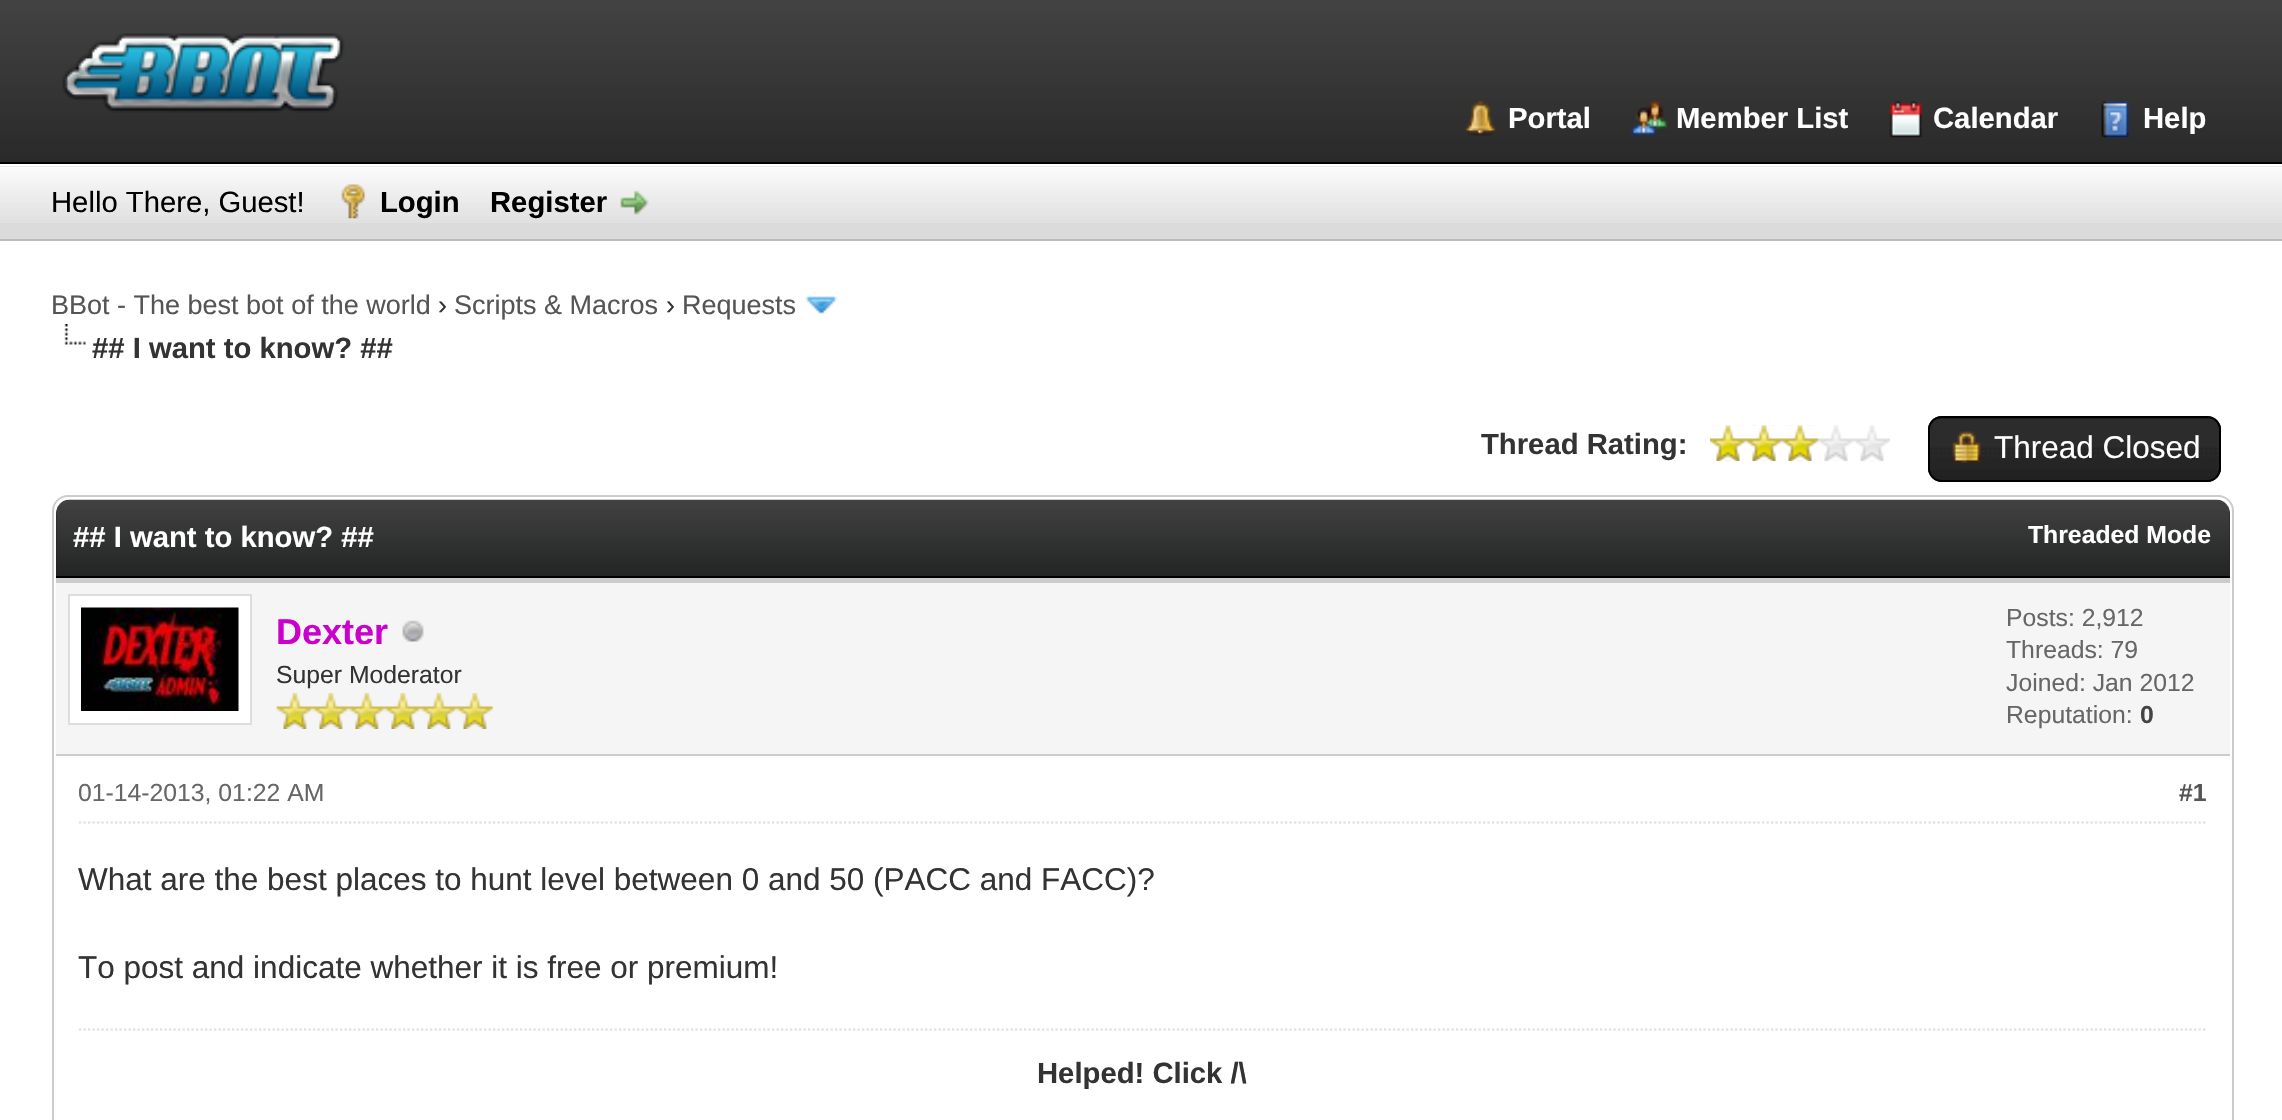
void draw(SkCanvas* c) {
SkPaint p;
p.setAntiAlias(true);
auto F=[&](const char* family, int weight, float size, bool italic = false){SkFontStyle style(weight, SkFontStyle::kNormal_Width,italic ? SkFontStyle::kItalic_Slant : SkFontStyle::kUpright_Slant);SkFont result(fontMgr->matchFamilyStyle(family, style), size);result.setSubpixel(true);return result;};
auto T=[&](const char* s, float x, float y, const SkFont& font){c->drawString(s, x, y, font, p);};
auto R=[&](float x, float y, float w, float h){c->drawRect(SkRect::MakeXYWH(x, y, w, h), p);};
auto Q=[&](float x, float y, float w, float h, float radius){c->drawRoundRect(SkRect::MakeXYWH(x, y, w, h), radius, radius, p);};
auto I=[&](const char* path, float x, float y, float w, float h){auto image = SkImages::DeferredFromEncodedData(SkData::MakeFromFileName(path));c->drawImageRect(image, SkRect::MakeXYWH(x, y, w, h), SkSamplingOptions());};
auto P=[&](const char* data, bool evenOdd = false){SkPath result = *SkParsePath::FromSVGString(data);if (evenOdd) result.setFillType(SkPathFillType::kEvenOdd);return result;};
c->clear(0xffffffff);
I("1.png",0,0,2282,162);
p.setColor(0xff000000);
R(0,162,2282,2);
I("2.png",62,33,283,80);
I("3.png",1464,101,33,35);
auto f1 = F("Liberation Sans",700,29.25);
p.setColor(0xffffffff);
T("Portal",1508,128,f1);
I("4.png",1631,101,37,35);
T("Member List",1676,128,f1);
I("5.png",1889,101,34,37);
T("Calendar",1933,128,f1);
I("6.png",2101,101,28,37);
T("Help",2143,128,f1);
p.setColor(0xffdcdbdc);
R(0,166,2282,73);
I("7.png",0,166,2282,57);
p.setColor(0xffbbbbbb);
R(0,239,2282,2);
auto f2 = F("Liberation Sans",400,29.25);
p.setColor(0xff000000);
T("Hello There, Guest!",51,212,f2);
I("8.png",341,184,25,35);
T("Login",380,212,f1);
T("Register",490,212,f1);
I("9.png",620,190,29,25);
auto f3 = F("Liberation Sans",400,27);
p.setColor(0xff555555);
T("BBot - The best bot of the world",51,314,f3);
p.setColor(0xff333333);
T("›",438,314,f3);
p.setColor(0xff555555);
T("Scripts & Macros",454,314,f3);
p.setColor(0xff333333);
T("›",666,314,f3);
p.setColor(0xff555555);
T("Requests",682,314,f3);
I("10.png",805,296,33,18);
I("11.png",64,324,22,21);
p.setColor(0xff333333);
T("## I want to know? ##",92,358,f1);
T("Thread Rating:",1481,454,f1);
I("12.png",1710,425,180,37);
I("13.png",1710,425,108,36);
p.setColor(0xff0f0f0f);
Q(1928,416,293,66,14);
I("14.png",1928,418,293,64);
p.setStroke(true);
p.setStrokeWidth(2);
p.setColor(0xff000000);
c->drawRoundRect(SkRect::MakeXYWH(1929,417,291,64),13,13,p);
I("15.png",1952,431,29,32);
auto f4 = F("Liberation Sans",400,31.5);
p.setStroke(false);
p.setColor(0xffffffff);
T("Thread Closed",1994,458,f4);
p.setStroke(true);
p.setColor(0xffcccccc);
c->drawRoundRect(SkRect::MakeXYWH(53,496,2180,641),15,15,p);
p.setStroke(false);
p.setColor(0xff202121);
c->drawPath(P("M70 500h2146c7.5 0 14 6.5 14 14v64h-2174v-64c0-7.5 6.5-14 14-14z"),p);
I("16.png",56,499,2174,77);
p.setColor(0xff000000);
R(56,576,2174,2);
p.setColor(0xffffffff);
T("## I want to know? ##",73,547,f1);
auto f5 = F("Liberation Sans",700,24.75);
T("Threaded Mode",2028,543,f5);
p.setColor(0xfff5f5f5);
R(56,583,2174,171);
p.setColor(0xffcccccc);
R(56,578,2174,5);
R(56,754,2174,2);
p.setColor(0xffffffff);
c->drawRect(SkRect::MakeXYWH(69,595,182,129),p);
p.setStroke(true);
p.setColor(0xffdddddd);
c->drawRect(SkRect::MakeXYWH(69,595,182,129),p);
I("17.png",81,607,158,104);
auto f6 = F("Liberation Sans",700,36);
p.setStroke(false);
p.setColor(0xffcc00cc);
T("Dexter",276,644,f6);
I("18.png",402,620,22,22);
auto f7 = F("Liberation Sans",400,24.75);
p.setColor(0xff333333);
T("Super Moderator",276,683,f7);
I("19.png",276,693,37,36);
I("20.png",312,693,37,36);
I("20.png",348,693,37,36);
I("20.png",384,693,37,36);
I("21.png",420,693,37,36);
I("21.png",456,693,37,36);
p.setColor(0xff666666);
T("Posts: 2,912",2006,626,f7);
T("Threads: 79",2006,658,f7);
T("Joined: Jan 2012",2006,691,f7);
T("Reputation:",2006,723,f7);
p.setColor(0xff444444);
T("0",2140,723,f5);
p.setStroke(true);
p.setStrokeWidth(2.2);
p.setColor(0xffdddddd);
p.setPathEffect(SkDashPathEffect::Make({{2.25f,2.25f}}, 0));
c->drawPath(P("M79 822.5h2128"),p);
p.setPathEffect(nullptr);
p.setStroke(false);
p.setColor(0xff666666);
T("01-14-2013, 01:22 AM",78,801,f7);
p.setColor(0xff555555);
T("#1",2179,801,f5);
p.setColor(0xff333333);
T("What are the best places to hunt level between 0 and 50 (PACC and FACC)?",78,890,f4);
T("To post and indicate whether it is free or premium!",78,978,f4);
p.setStroke(true);
p.setColor(0xffdddddd);
p.setPathEffect(SkDashPathEffect::Make({{2.25f,2.25f}}, 0));
c->drawPath(P("M79 1029.5h2128"),p);
p.setPathEffect(nullptr);
p.setStroke(false);
p.setColor(0xff333333);
T("Helped! Click /\\",1037,1083,f1);
}
